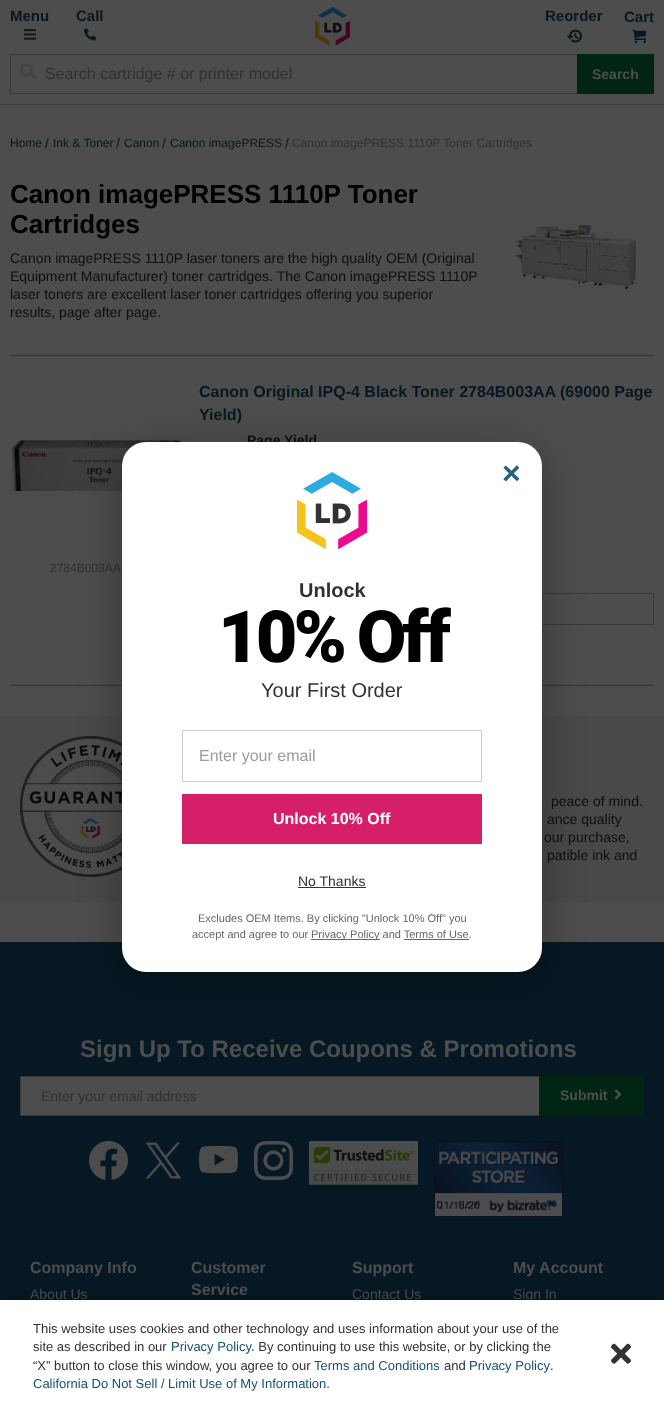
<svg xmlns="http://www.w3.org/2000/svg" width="664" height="1414">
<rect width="100%" height="100%" fill="#4d4d4d"/>
<rect y="104" width="664" height="1" fill="#3f3f3f"/>
<text x="10" y="21" style="font-family:Liberation Sans;font-size:15px;font-weight:bold;fill:#061823">Menu</text>
<image x="24" y="29" width="12" height="11" href="media/1.png"/>
<text x="76" y="21" style="font-family:Liberation Sans;font-size:15px;font-weight:bold;fill:#061823">Call</text>
<image x="84" y="28" width="12" height="13" href="media/2.png"/>
<image x="315" y="7" width="35" height="39" href="media/3.png"/>
<text x="545" y="21" style="font-family:Liberation Sans;font-size:15px;font-weight:bold;fill:#061823">Reorder</text>
<image x="567" y="29" width="15" height="14" href="media/4.png"/>
<text x="624" y="22" style="font-family:Liberation Sans;font-size:15px;font-weight:bold;fill:#061823">Cart</text>
<image x="632" y="29" width="14" height="15" href="media/5.png"/>
<rect x="10.5" y="54.5" width="643" height="39" rx="0.5" fill="none" stroke="#3a3a3a"/>
<image x="20" y="63" width="16" height="17" href="media/6.png"/>
<text x="45" y="79" style="font-family:Liberation Sans;font-size:16px;fill:#313131">Search cartridge # or printer model</text>
<rect x="577" y="54" width="77" height="40" fill="#002613"/>
<text x="592" y="79" style="font-family:Liberation Sans;font-size:14px;font-weight:bold;fill:#4d4d4d">Search</text>
<text x="10" y="147" style="font-family:Liberation Sans;font-size:12px;fill:#061823">Home</text>
<text x="45" y="148" style="font-family:Liberation Sans;font-size:14px;fill:#061823">/</text>
<text x="53" y="147" style="font-family:Liberation Sans;font-size:12px;fill:#061823">Ink &amp; Toner</text>
<text x="116" y="148" style="font-family:Liberation Sans;font-size:14px;fill:#061823">/</text>
<text x="124" y="147" style="font-family:Liberation Sans;font-size:12px;fill:#061823">Canon</text>
<text x="162" y="148" style="font-family:Liberation Sans;font-size:14px;fill:#061823">/</text>
<text x="170" y="147" style="font-family:Liberation Sans;font-size:12px;fill:#061823">Canon imagePRESS</text>
<text x="285" y="148" style="font-family:Liberation Sans;font-size:14px;fill:#061823">/</text>
<text x="292" y="147" style="font-family:Liberation Sans;font-size:12px;fill:#313131">Canon imagePRESS 1110P Toner Cartridges</text>
<text x="10" y="203" style="font-family:Liberation Sans;font-size:26px;font-weight:bold;fill:#000">Canon imagePRESS 1110P Toner</text>
<text x="10" y="233" style="font-family:Liberation Sans;font-size:26px;font-weight:bold;fill:#000">Cartridges</text>
<text x="10" y="263" style="font-family:Liberation Sans;font-size:14px;fill:#0f0f0f">Canon imagePRESS 1110P laser toners are the high quality OEM (Original</text>
<text x="10" y="281" style="font-family:Liberation Sans;font-size:14px;fill:#0f0f0f">Equipment Manufacturer) toner cartridges. The Canon imagePRESS 1110P</text>
<text x="10" y="299" style="font-family:Liberation Sans;font-size:14px;fill:#0f0f0f">laser toners are excellent laser toner cartridges offering you superior</text>
<text x="10" y="317" style="font-family:Liberation Sans;font-size:14px;fill:#0f0f0f">results, page after page.</text>
<image x="515" y="224" width="121" height="66" href="media/7.png"/>
<rect x="10" y="355" width="644" height="1" fill="#323232"/>
<rect x="10" y="685" width="644" height="1" fill="#323232"/>
<text x="199" y="397" style="font-family:Liberation Sans;font-size:16px;font-weight:bold;fill:#061823">Canon Original IPQ-4 Black Toner 2784B003AA (69000 Page</text>
<text x="199" y="420" style="font-family:Liberation Sans;font-size:16px;font-weight:bold;fill:#061823">Yield)</text>
<text x="247" y="445" style="font-family:Liberation Sans;font-size:14px;font-weight:bold;fill:#0f0f0f">Page Yield</text>
<rect x="199.5" y="593.5" width="454" height="31" rx="0.5" fill="none" stroke="#3a3a3a"/>
<image x="10" y="436" width="179" height="61" href="media/8.png"/>
<text x="50" y="572" style="font-family:Liberation Sans;font-size:12px;fill:#313131">2784B003AA</text>
<rect y="716" width="664" height="186" fill="#494949"/>
<image x="20" y="736" width="102" height="141" href="media/9.png"/>
<text x="551" y="806" style="font-family:Liberation Sans;font-size:14px;fill:#0f0f0f">peace of mind.</text>
<text x="547" y="824" style="font-family:Liberation Sans;font-size:14px;fill:#0f0f0f">ance quality</text>
<text x="544" y="842" style="font-family:Liberation Sans;font-size:14px;fill:#0f0f0f">our purchase,</text>
<text x="547" y="860" style="font-family:Liberation Sans;font-size:14px;fill:#0f0f0f">patible ink and</text>
<rect y="942" width="664" height="358" fill="#061823"/>
<text x="80" y="1057" style="font-family:Liberation Sans;font-size:24px;font-weight:bold;fill:#4d4d4d">Sign Up To Receive Coupons &amp; Promotions</text>
<rect x="21" y="1077" width="518" height="38" fill="#4d4d4d"/>
<rect x="20.5" y="1076.5" width="617" height="39" rx="0.5" fill="none" stroke="#3a3a3a"/>
<text x="41" y="1101" style="font-family:Liberation Sans;font-size:14px;fill:#313131">Enter your email address</text>
<rect x="539" y="1076" width="105" height="40" fill="#002613"/>
<text x="560" y="1100" style="font-family:Liberation Sans;font-size:14px;font-weight:bold;fill:#4d4d4d">Submit</text>
<image x="614" y="1089" width="8" height="11" href="media/10.png"/>
<image x="89" y="1141" width="39" height="39" href="media/11.png"/>
<image x="145" y="1142" width="37" height="37" href="media/12.png"/>
<image x="199" y="1145" width="39" height="29" href="media/13.png"/>
<image x="254" y="1141" width="39" height="39" href="media/14.png"/>
<image x="309" y="1141" width="109" height="44" href="media/15.png"/>
<image x="434" y="1141" width="129" height="76" href="media/16.png"/>
<text x="30" y="1273" style="font-family:Liberation Sans;font-size:16px;font-weight:bold;fill:#4d4d4d">Company Info</text>
<text x="30" y="1299" style="font-family:Liberation Sans;font-size:14px;fill:#4d4d4d">About Us</text>
<text x="191" y="1273" style="font-family:Liberation Sans;font-size:16px;font-weight:bold;fill:#4d4d4d">Customer</text>
<text x="191" y="1295" style="font-family:Liberation Sans;font-size:16px;font-weight:bold;fill:#4d4d4d">Service</text>
<text x="352" y="1273" style="font-family:Liberation Sans;font-size:16px;font-weight:bold;fill:#4d4d4d">Support</text>
<text x="352" y="1299" style="font-family:Liberation Sans;font-size:14px;fill:#4d4d4d">Contact Us</text>
<text x="513" y="1273" style="font-family:Liberation Sans;font-size:16px;font-weight:bold;fill:#4d4d4d">My Account</text>
<text x="513" y="1299" style="font-family:Liberation Sans;font-size:14px;fill:#4d4d4d">Sign In</text>
<rect x="7" y="1304" width="650" height="100" fill="#000000a3" filter="blur(6.5px)"/>
<rect y="1300" width="664" height="114" fill="#fff"/>
<text x="33" y="1333" style="font-family:Liberation Sans;font-size:13px;fill:#313131">This website uses cookies and other technology and uses information about your use of the</text>
<text x="33" y="1351" style="font-family:Liberation Sans;font-size:13px;fill:#313131">site as described in our</text>
<text x="171" y="1351" style="font-family:Liberation Sans;font-size:13px;fill:#145173">Privacy Policy</text>
<text x="251" y="1351" style="font-family:Liberation Sans;font-size:13px;fill:#313131">. By continuing to use this website, or by clicking the</text>
<text x="33" y="1370" style="font-family:Liberation Sans;font-size:13px;fill:#313131">“X” button to close this window, you agree to our</text>
<text x="314" y="1370" style="font-family:Liberation Sans;font-size:13px;fill:#145173">Terms and Conditions</text>
<text x="444" y="1370" style="font-family:Liberation Sans;font-size:13px;fill:#313131">and</text>
<text x="469" y="1370" style="font-family:Liberation Sans;font-size:13px;fill:#145173">Privacy Policy</text>
<text x="550" y="1370" style="font-family:Liberation Sans;font-size:13px;fill:#313131">.</text>
<text x="33" y="1388" style="font-family:Liberation Sans;font-size:13px;fill:#145173">California Do Not Sell / Limit Use of My Information.</text>
<image x="611" y="1343" width="20" height="21" href="media/17.png"/>
<rect x="122" y="452" width="420" height="530" rx="24" fill="#0000004d" filter="blur(20px)"/>
<rect x="122" y="442" width="420" height="530" rx="24" fill="#fff"/>
<text x="502" y="484" style="font-family:Liberation Sans;font-size:32px;font-weight:bold;fill:#2c5f7c">×</text>
<image x="297" y="472" width="70" height="77" href="media/18.png"/>
<text x="299" y="597" style="font-family:Liberation Sans;font-size:20px;font-weight:bold;fill:#313131">Unlock</text>
<text x="218" y="662" style="font-family:Roboto;font-size:72px;font-weight:900;letter-spacing:-4px;fill:#000">10% Off</text>
<text x="261" y="697" style="font-family:Liberation Sans;font-size:20px;fill:#313131">Your First Order</text>
<rect x="182.5" y="730.5" width="299" height="51" fill="none" stroke="#ccc"/>
<text x="199" y="761" style="font-family:Liberation Sans;font-size:16px;fill:#9c9c9c">Enter your email</text>
<rect x="182" y="794" width="300" height="50" fill="#d61f69"/>
<text x="273" y="824" style="font-family:Liberation Sans;font-size:16px;font-weight:bold;fill:#fff">Unlock 10% Off</text>
<text x="298" y="886" style="font-family:Liberation Sans;font-size:14px;fill:#313131">No Thanks</text>
<rect x="298" y="887" width="68" height="1" fill="#333"/>
<text x="198" y="922" style="font-family:Liberation Sans;font-size:11px;fill:#666">Excludes OEM Items. By clicking "Unlock 10% Off" you</text>
<text x="192" y="938" style="font-family:Liberation Sans;font-size:11px;fill:#666">accept and agree to our</text>
<rect x="311" y="939" width="69" height="1" fill="#666"/>
<text x="311" y="938" style="font-family:Liberation Sans;font-size:11px;fill:#666">Privacy Policy and Terms of Use.</text>
<rect x="404" y="939" width="65" height="1" fill="#666"/>
</svg>
